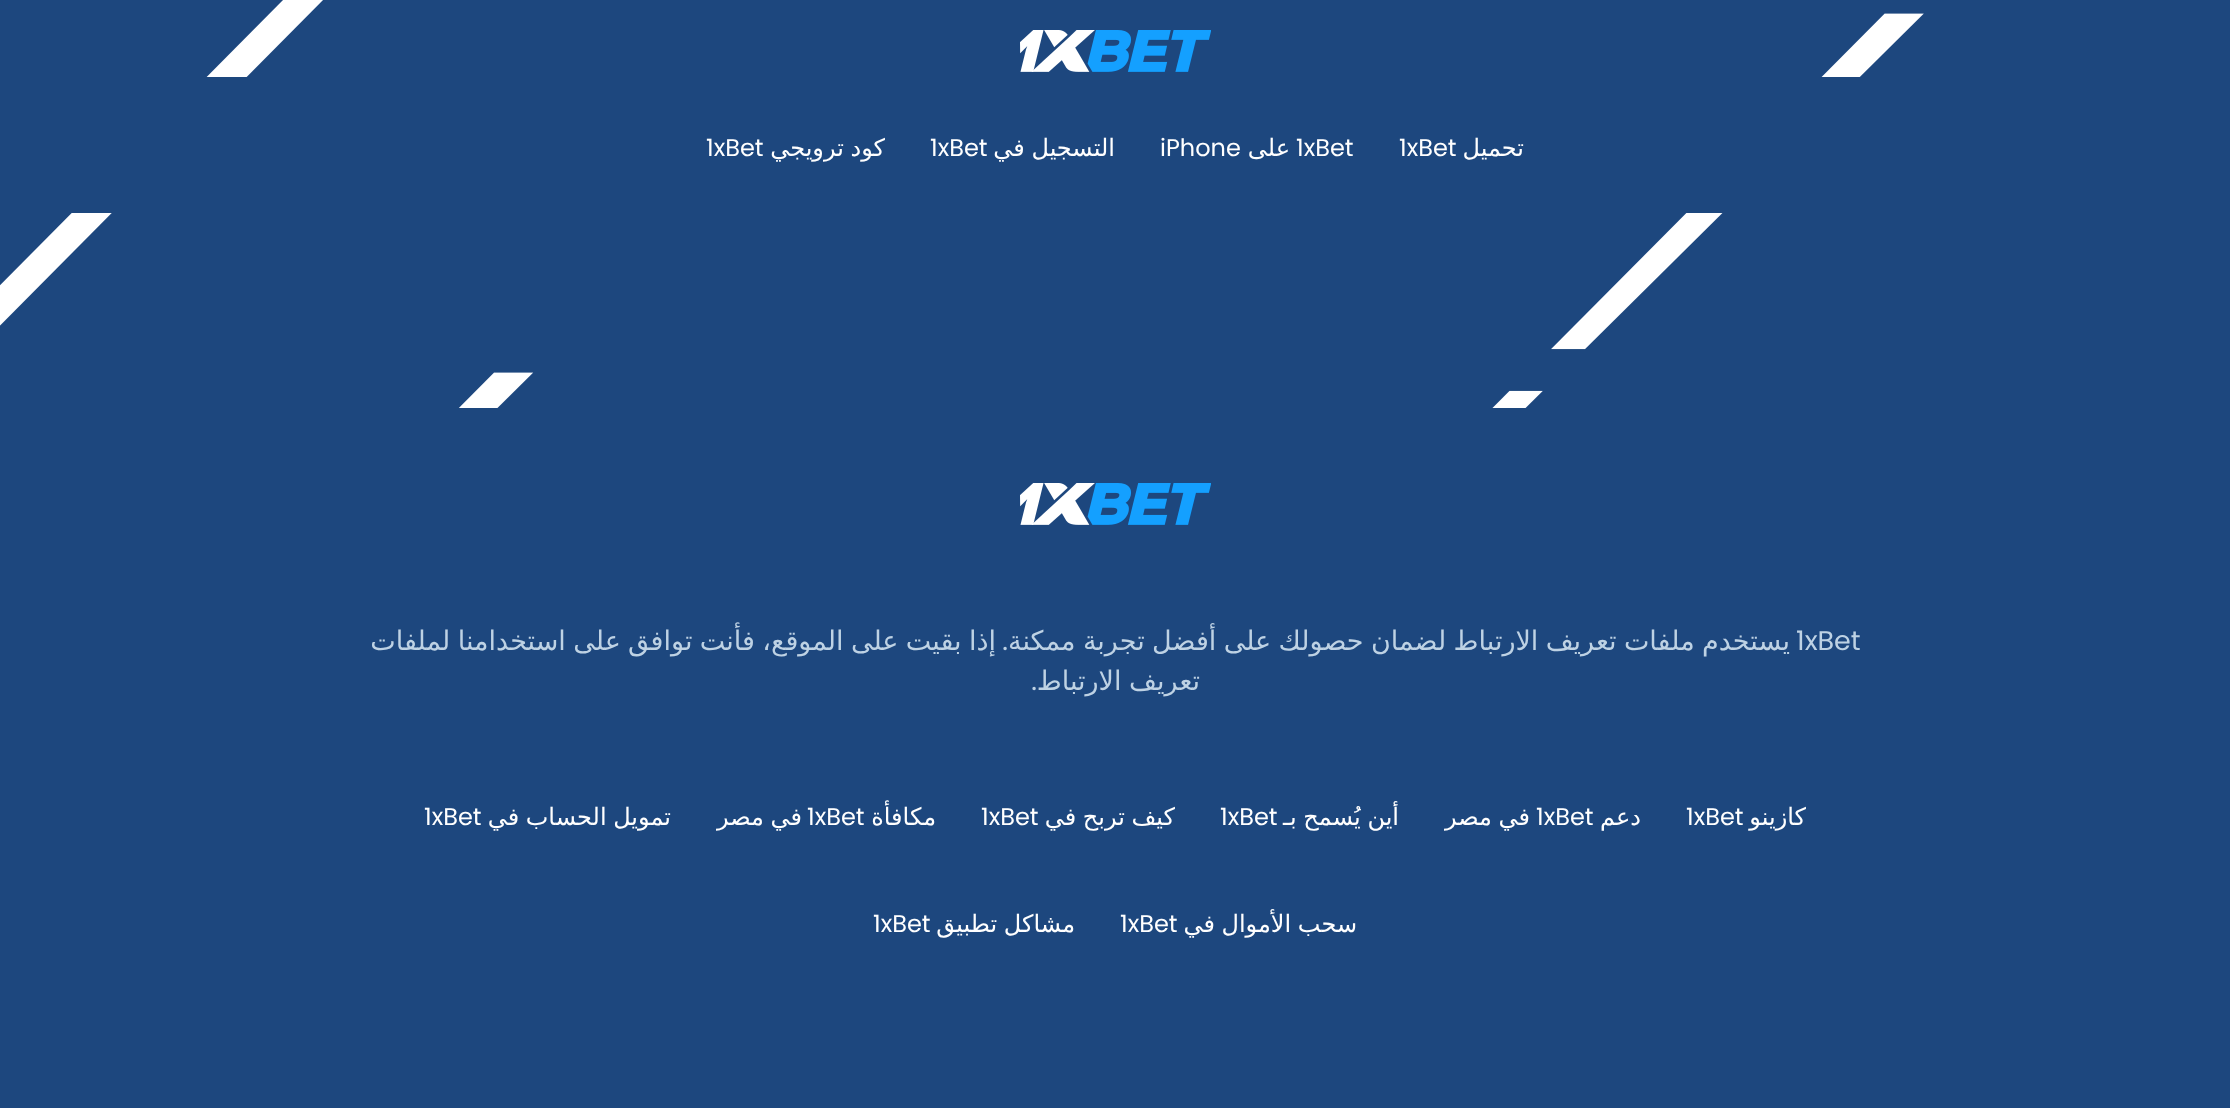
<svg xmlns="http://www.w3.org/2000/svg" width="2230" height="1108">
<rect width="100%" height="100%" fill="#1d477e"/>
<image x="0" y="0" width="1924" height="408" href="media/1.png"/>
<image x="1020" y="30" width="191" height="42" href="media/2.png"/>
<rect x="71" y="77" width="1789" height="136" fill="#1d477e"/>
<text x="1524" y="156" style="font-family:DejaVu Sans;font-size:24px;direction:rtl;fill:#fff">تحميل</text>
<text x="1399" y="156" style="font-family:Poppins;font-size:24px;fill:#fff">1xBet</text>
<text x="1296" y="156" style="font-family:Poppins;font-size:24px;fill:#fff">1xBet</text>
<text x="1290" y="156" style="font-family:DejaVu Sans;font-size:24px;direction:rtl;fill:#fff">على</text>
<text x="1160" y="156" style="font-family:Poppins;font-size:24px;fill:#fff">iPhone</text>
<text x="1115" y="156" word-spacing="-1" style="font-family:DejaVu Sans;font-size:24px;direction:rtl;fill:#fff">التسجيل في</text>
<text x="930" y="156" style="font-family:Poppins;font-size:24px;fill:#fff">1xBet</text>
<text x="885" y="156" word-spacing="-1" style="font-family:DejaVu Sans;font-size:24px;direction:rtl;fill:#fff">كود ترويجي</text>
<text x="706" y="156" style="font-family:Poppins;font-size:24px;fill:#fff">1xBet</text>
<image x="1020" y="483" width="191" height="42" href="media/2.png"/>
<text x="1796" y="650" style="font-family:Poppins;font-size:27px;fill:#bed2e4">1xBet</text>
<text x="1790" y="650" word-spacing="-1.25" style="font-family:DejaVu Sans;font-size:27px;direction:rtl;fill:#bed2e4">يستخدم ملفات تعريف الارتباط لضمان حصولك على أفضل تجربة ممكنة</text>
<text x="1008" y="650" style="font-family:Poppins;font-size:27px;direction:rtl;fill:#bed2e4">.</text>
<text x="996" y="650" word-spacing="-1.25" style="font-family:DejaVu Sans;font-size:27px;direction:rtl;fill:#bed2e4">إذا بقيت على الموقع، فأنت توافق على استخدامنا لملفات</text>
<text x="1200" y="690" word-spacing="-1" style="font-family:DejaVu Sans;font-size:27px;direction:rtl;fill:#bed2e4">تعريف الارتباط</text>
<text x="1037" y="690" style="font-family:Poppins;font-size:27px;direction:rtl;fill:#bed2e4">.</text>
<text x="1806" y="825" style="font-family:DejaVu Sans;font-size:24px;direction:rtl;fill:#fff">كازينو</text>
<text x="1686" y="825" style="font-family:Poppins;font-size:24px;fill:#fff">1xBet</text>
<text x="1641" y="825" style="font-family:DejaVu Sans;font-size:24px;direction:rtl;fill:#fff">دعم</text>
<text x="1536" y="825" style="font-family:Poppins;font-size:24px;fill:#fff">1xBet</text>
<text x="1530" y="825" word-spacing="-1" style="font-family:DejaVu Sans;font-size:24px;direction:rtl;fill:#fff">في مصر</text>
<text x="1399" y="825" word-spacing="-1" style="font-family:DejaVu Sans;font-size:24px;direction:rtl;fill:#fff">أين يُسمح بـ</text>
<text x="1220" y="825" style="font-family:Poppins;font-size:24px;fill:#fff">1xBet</text>
<text x="1175" y="825" word-spacing="-1" style="font-family:DejaVu Sans;font-size:24px;direction:rtl;fill:#fff">كيف تربح في</text>
<text x="981" y="825" style="font-family:Poppins;font-size:24px;fill:#fff">1xBet</text>
<text x="936" y="825" style="font-family:DejaVu Sans;font-size:24px;direction:rtl;fill:#fff">مكافأة</text>
<text x="807" y="825" style="font-family:Poppins;font-size:24px;fill:#fff">1xBet</text>
<text x="802" y="825" word-spacing="-1" style="font-family:DejaVu Sans;font-size:24px;direction:rtl;fill:#fff">في مصر</text>
<text x="671" y="825" word-spacing="-1" style="font-family:DejaVu Sans;font-size:24px;direction:rtl;fill:#fff">تمويل الحساب في</text>
<text x="424" y="825" style="font-family:Poppins;font-size:24px;fill:#fff">1xBet</text>
<text x="1357" y="932" word-spacing="-1" style="font-family:DejaVu Sans;font-size:24px;direction:rtl;fill:#fff">سحب الأموال في</text>
<text x="1120" y="932" style="font-family:Poppins;font-size:24px;fill:#fff">1xBet</text>
<text x="1075" y="932" word-spacing="-1" style="font-family:DejaVu Sans;font-size:24px;direction:rtl;fill:#fff">مشاكل تطبيق</text>
<text x="873" y="932" style="font-family:Poppins;font-size:24px;fill:#fff">1xBet</text>
</svg>
